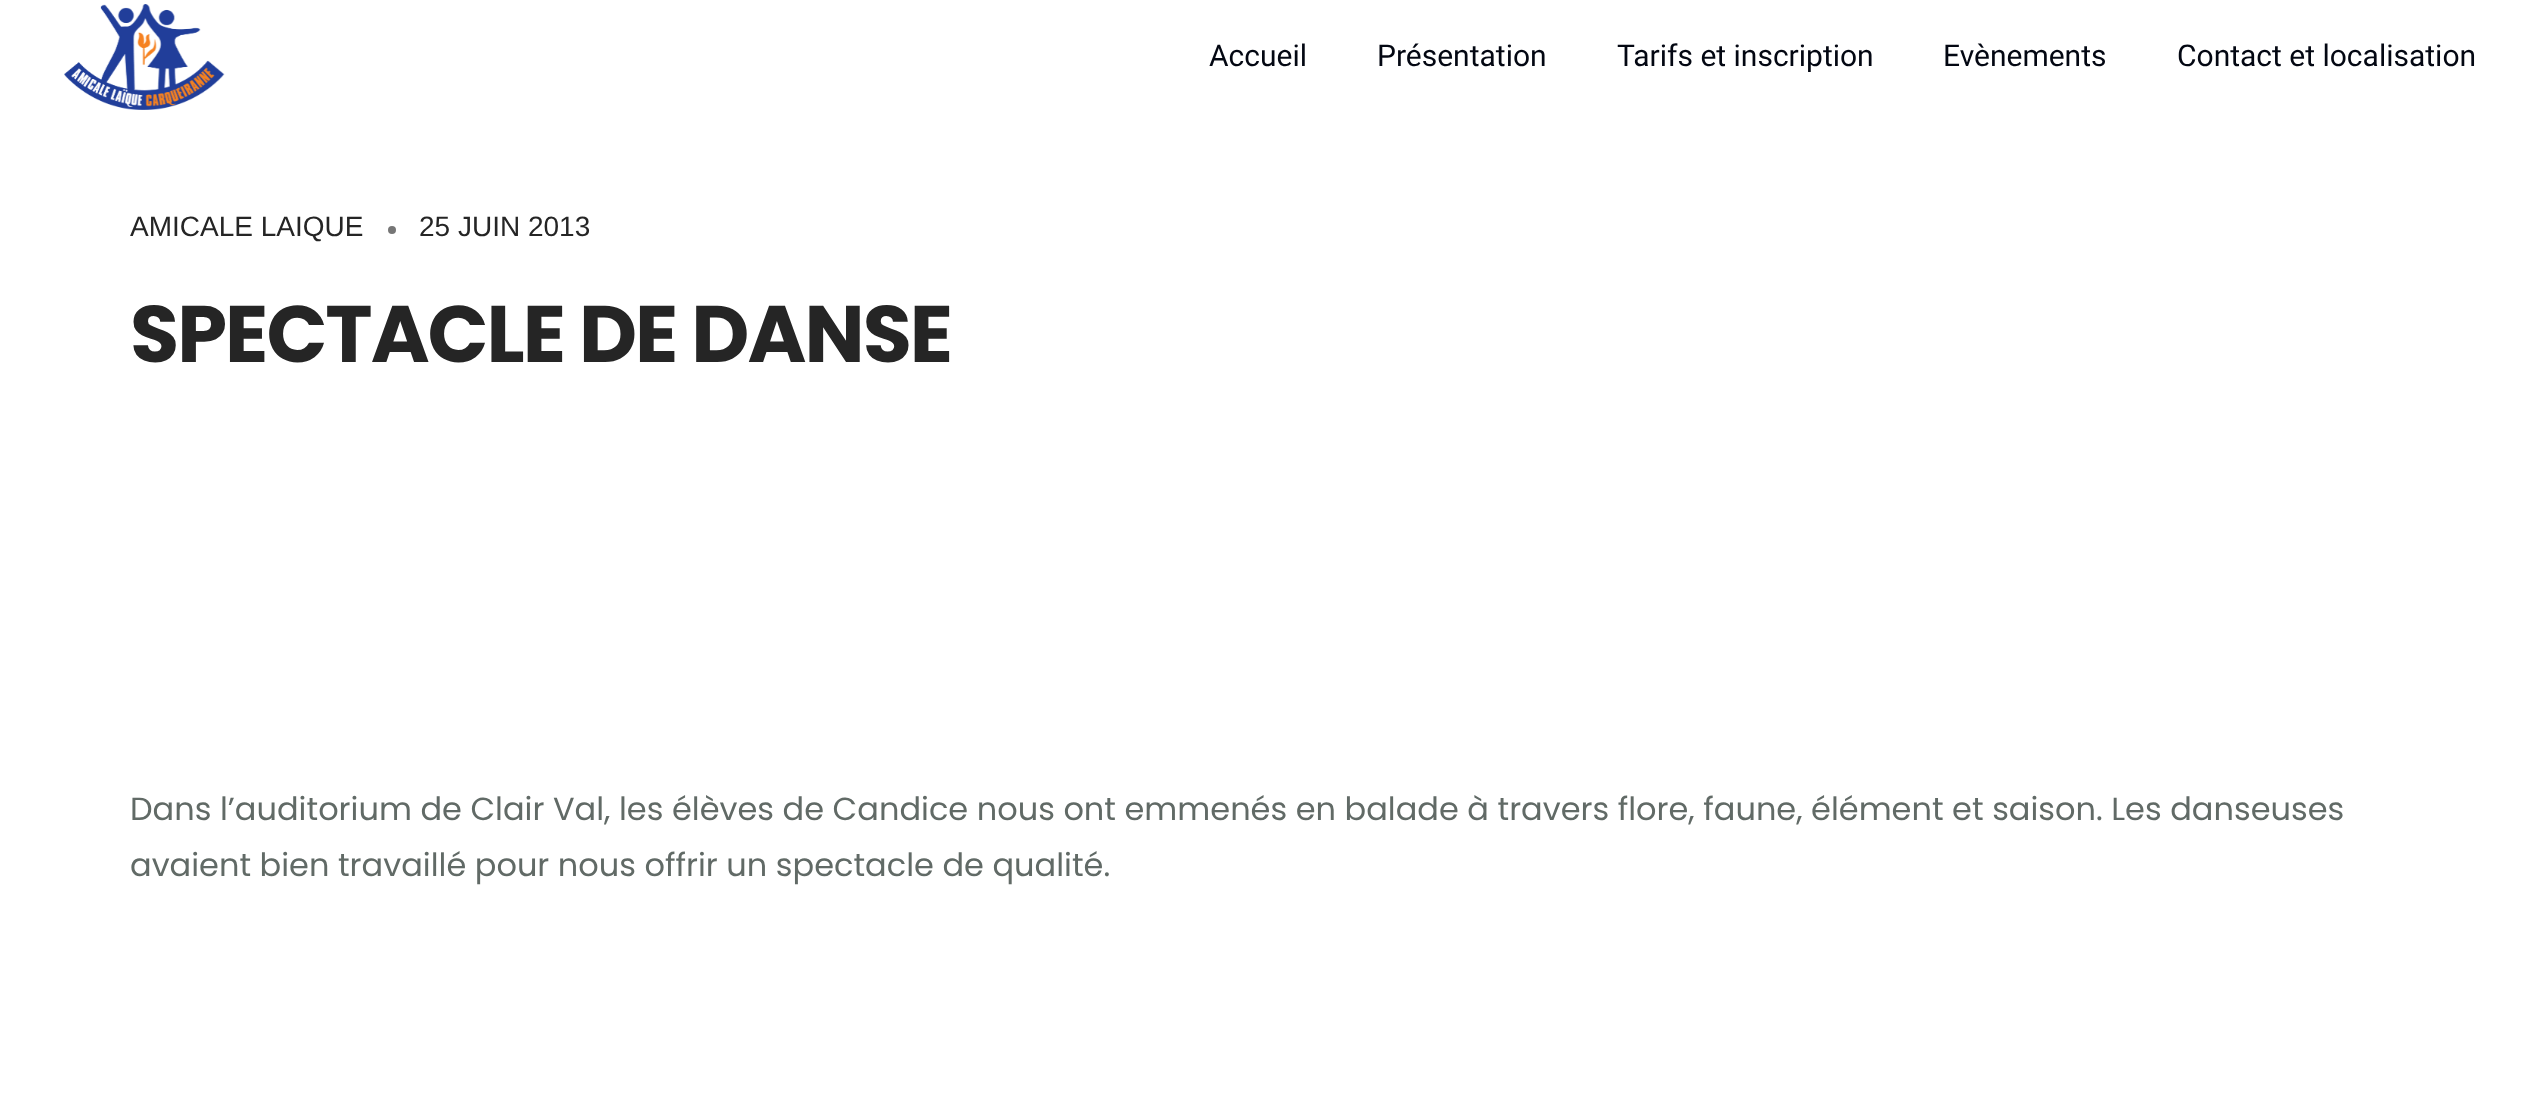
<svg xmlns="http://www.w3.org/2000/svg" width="2539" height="1094">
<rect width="100%" height="100%" fill="#fff"/>
<image x="64" y="4" width="161" height="106" href="media/1.png"/>
<text x="1209" y="66" style="font-family:Roboto;font-size:30px;fill:#030712">Accueil</text>
<text x="1377" y="66" style="font-family:Roboto;font-size:30px;fill:#030712">Présentation</text>
<text x="1617" y="66" style="font-family:Roboto;font-size:30px;fill:#030712">Tarifs et inscription</text>
<text x="1943" y="66" style="font-family:Roboto;font-size:30px;fill:#030712">Evènements</text>
<text x="2177" y="66" style="font-family:Roboto;font-size:30px;fill:#030712">Contact et localisation</text>
<text x="130" y="236" style="font-family:Liberation Sans;font-size:28px;fill:#252525">AMICALE LAIQUE</text>
<circle cx="392" cy="230" r="4" fill="#767676"/>
<text x="419" y="236" style="font-family:Liberation Sans;font-size:28px;fill:#252525">25 JUIN 2013</text>
<text x="130" y="362" style="font-family:Poppins;font-size:80px;font-weight:bold;letter-spacing:-2px;fill:#252525">SPECTACLE DE DANSE</text>
<text x="130" y="820" style="font-family:Poppins;font-size:32px;fill:#616a66">Dans l’auditorium de Clair Val, les élèves de Candice nous ont emmenés en balade à travers flore, faune, élément et saison. Les danseuses</text>
<text x="130" y="876" style="font-family:Poppins;font-size:32px;fill:#616a66">avaient bien travaillé pour nous offrir un spectacle de qualité.</text>
</svg>
